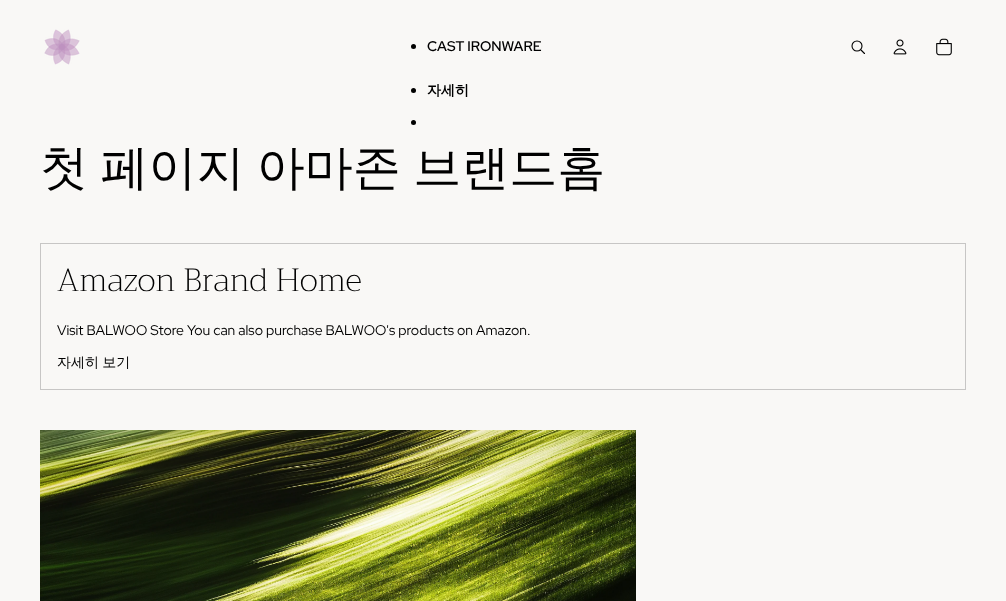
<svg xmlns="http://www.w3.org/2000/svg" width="1006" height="601">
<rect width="100%" height="100%" fill="#f9f8f6"/>
<image x="44" y="29" width="36" height="36" href="media/1.png"/>
<circle cx="413.5" cy="46.5" r="2.5" fill="#000"/>
<text x="427" y="51" style="font-family:Red Hat Display;font-size:14px;font-weight:600;fill:#000">CAST IRONWARE</text>
<circle cx="413.5" cy="90.5" r="2.5" fill="#000"/>
<text x="427" y="95" style="font-family:WenQuanYi Zen Hei;font-size:14px;font-weight:bold;fill:#000">자세히</text>
<circle cx="413.5" cy="122.5" r="2.5" fill="#000"/>
<circle cx="857" cy="46" r="5" fill="none" stroke="#000" stroke-width="1.1"/>
<path d="M861 50l3.5 3.5" fill="none" stroke="#000" stroke-width="1.1" stroke-linecap="round" stroke-linejoin="round"/>
<image x="893" y="39" width="14" height="16" href="media/2.png"/>
<image x="936" y="38" width="16" height="18" href="media/3.png"/>
<text x="40" y="184" word-spacing="-2" style="font-family:WenQuanYi Zen Hei;font-size:48px;font-weight:500;fill:#000">첫 페이지 아마존 브랜드홈</text>
<rect x="40.5" y="243.5" width="925" height="146" fill="none" stroke="#c7c6c5"/>
<text x="57" y="291" style="font-family:Trirong;font-size:32px;font-weight:300;fill:#000">Amazon Brand Home</text>
<text x="57" y="335" style="font-family:Red Hat Display;font-size:14px;fill:#000">Visit BALWOO Store You can also purchase BALWOO's products on Amazon.</text>
<text x="57" y="367" word-spacing="-1" style="font-family:WenQuanYi Zen Hei;font-size:14px;font-weight:500;fill:#000">자세히 보기</text>
<image x="40" y="430" width="596" height="171" href="media/4.png"/>
</svg>
